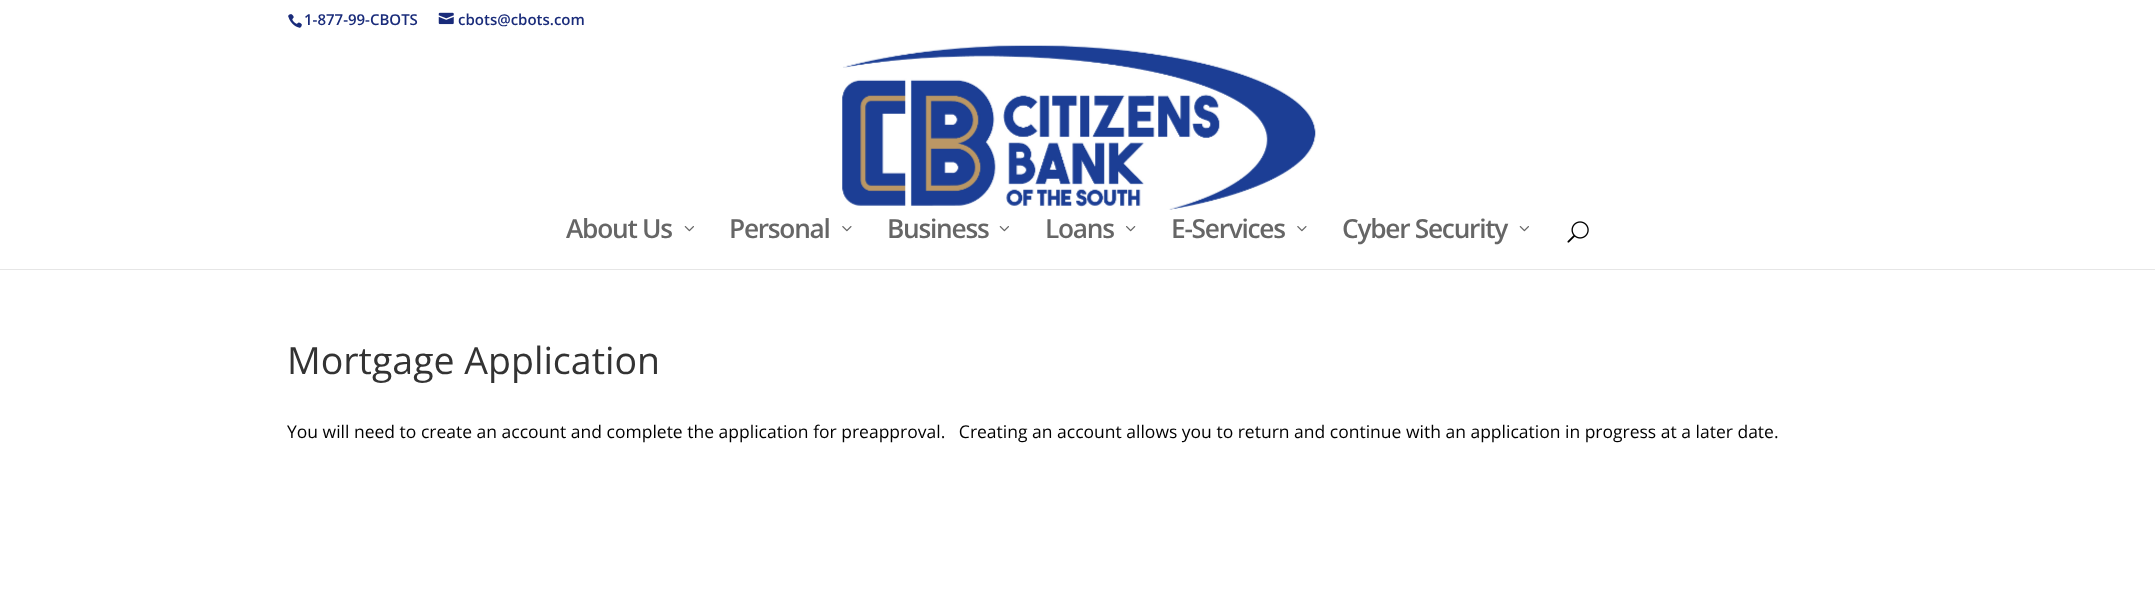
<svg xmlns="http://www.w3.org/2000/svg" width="2155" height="599">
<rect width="100%" height="100%" fill="#fff"/>
<image x="288" y="14" width="14" height="14" href="media/1.png"/>
<text x="304" y="25" style="font-family:Open Sans;font-size:15px;font-weight:600;fill:#192b7a">1-877-99-CBOTS</text>
<image x="438" y="12" width="16" height="13" href="media/2.png"/>
<text x="458" y="25" style="font-family:Open Sans;font-size:15px;font-weight:600;fill:#192b7a">cbots@cbots.com</text>
<rect y="269" width="2155" height="1" fill="#e6e6e6"/>
<image x="842" y="45" width="474" height="165" href="media/3.png"/>
<text x="566" y="238" style="font-family:Open Sans;font-size:26.25px;font-weight:600;letter-spacing:-1.25px;fill:#666">About Us</text>
<image x="684" y="226" width="10" height="6" href="media/4.png"/>
<text x="729" y="238" style="font-family:Open Sans;font-size:26.25px;font-weight:600;letter-spacing:-1.25px;fill:#666">Personal</text>
<image x="842" y="226" width="10" height="6" href="media/5.png"/>
<text x="887" y="238" style="font-family:Open Sans;font-size:26.25px;font-weight:600;letter-spacing:-1.25px;fill:#666">Business</text>
<image x="999" y="226" width="10" height="6" href="media/4.png"/>
<text x="1045" y="238" style="font-family:Open Sans;font-size:26.25px;font-weight:600;letter-spacing:-1.25px;fill:#666">Loans</text>
<image x="1126" y="226" width="10" height="6" href="media/6.png"/>
<text x="1171" y="238" style="font-family:Open Sans;font-size:26.25px;font-weight:600;letter-spacing:-1.25px;fill:#666">E-Services</text>
<image x="1297" y="226" width="10" height="6" href="media/5.png"/>
<text x="1342" y="238" style="font-family:Open Sans;font-size:26.25px;font-weight:600;letter-spacing:-1.25px;fill:#666">Cyber Security</text>
<image x="1519" y="226" width="10" height="6" href="media/4.png"/>
<image x="1567" y="221" width="22" height="22" href="media/7.png"/>
<text x="287" y="374" style="font-family:Open Sans;font-size:37.5px;fill:#333">Mortgage Application</text>
<text x="287" y="438" style="font-family:Open Sans;font-size:17.5px;fill:#000" xml:space="preserve">You will need to create an account and complete the application for preapproval.   Creating an account allows you to return and continue with an application in progress at a later date.</text>
</svg>
